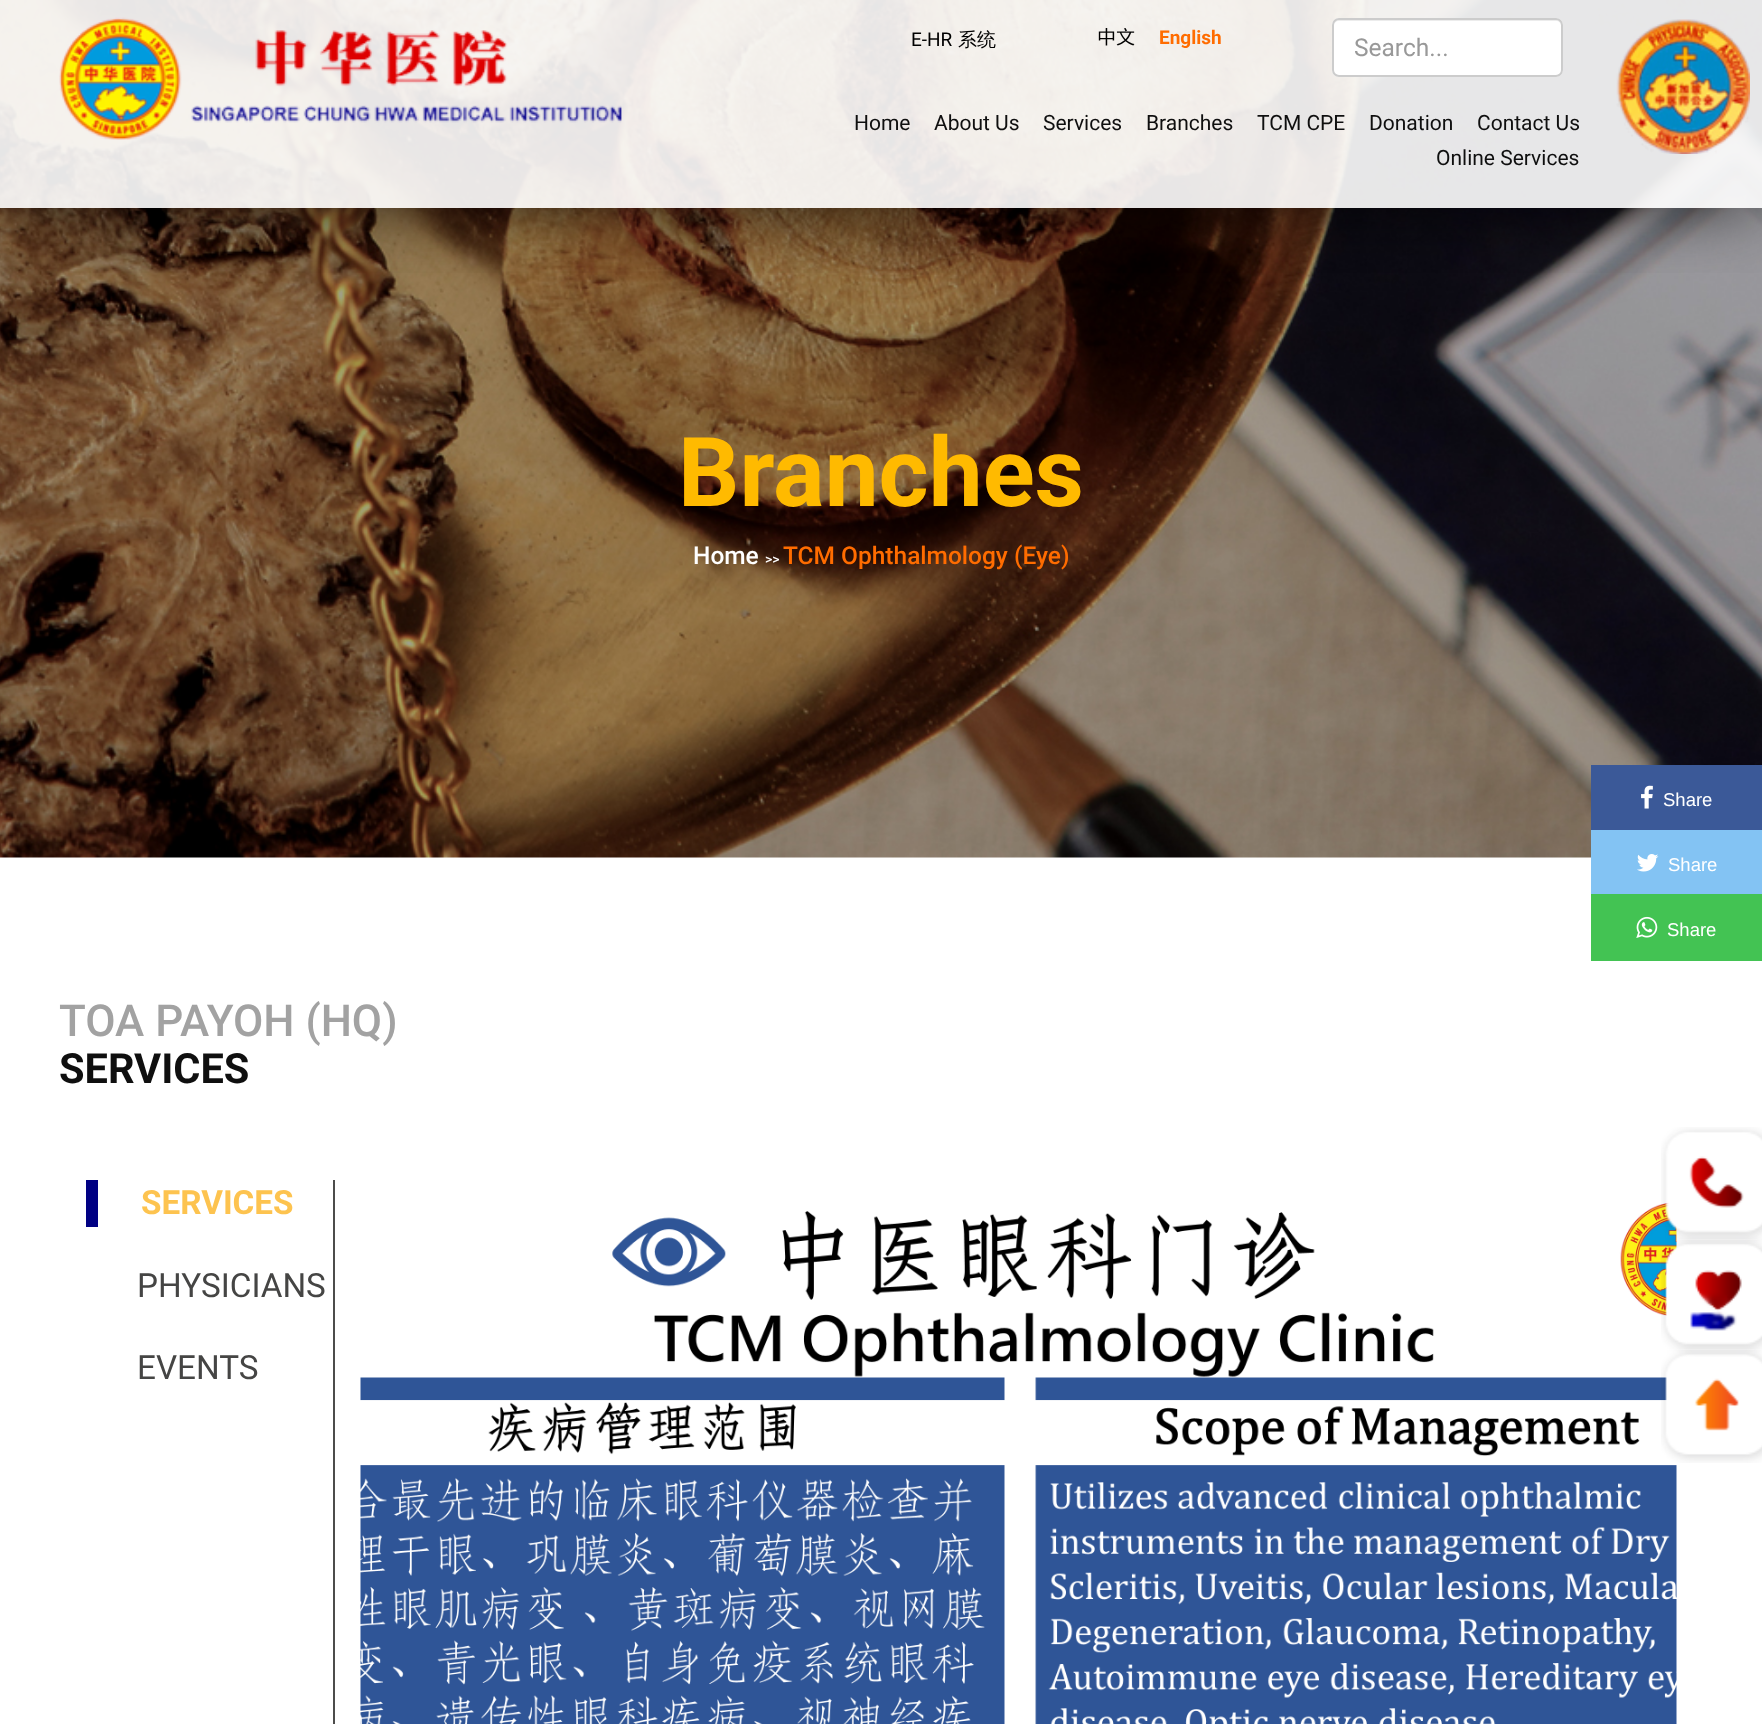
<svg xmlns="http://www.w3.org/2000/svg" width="1762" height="1724">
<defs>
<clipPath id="clip1"><rect x="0" y="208" width="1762" height="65"/></clipPath>
</defs>
<rect width="100%" height="100%" fill="#fff"/>
<image x="0" y="0" width="1762" height="858" href="media/3.png"/>
<g clip-path="url(#clip1)">
<rect x="4" y="11" width="1748" height="194" fill="#000000bf" filter="blur(35px)"/>
</g>
<rect width="1762" height="208" fill="#ffffffe6"/>
<image x="59" y="17" width="563" height="123" href="media/1.png"/>
<text x="911" y="46" style="font-family:Roboto;font-size:19px;fill:#000">E-HR</text>
<text x="958" y="46" style="font-family:WenQuanYi Zen Hei;font-size:19px;font-weight:500;fill:#000">系统</text>
<text x="1097" y="44" style="font-family:Noto Sans CJK SC;font-size:19px;fill:#000">中文</text>
<text x="1159" y="44" style="font-family:Roboto;font-size:19px;font-weight:bold;fill:#ff6c00">English</text>
<rect x="1332" y="18" width="231" height="59" rx="7" fill="#fff"/>
<path d="M1339 21h217c3 0 5 2 5 5c0-3 0-6-4-7h-218c-4 0-5 4-5 7c0-3 2-5 5-5z" fill="#ececec"/>
<rect x="1333" y="19" width="229" height="57" rx="6" fill="none" stroke="#ccc" stroke-width="2"/>
<text x="1354" y="56" style="font-family:Roboto;font-size:24.5px;fill:#999">Search...</text>
<text x="854" y="130" style="font-family:Roboto;font-size:21px;fill:#0f0f0f">Home</text>
<text x="934" y="130" style="font-family:Roboto;font-size:21px;fill:#0f0f0f">About Us</text>
<text x="1043" y="130" style="font-family:Roboto;font-size:21px;fill:#0f0f0f">Services</text>
<text x="1146" y="130" style="font-family:Roboto;font-size:21px;fill:#0f0f0f">Branches</text>
<text x="1257" y="130" style="font-family:Roboto;font-size:21px;fill:#0f0f0f">TCM CPE</text>
<text x="1369" y="130" style="font-family:Roboto;font-size:21px;fill:#0f0f0f">Donation</text>
<text x="1477" y="130" style="font-family:Roboto;font-size:21px;fill:#0f0f0f">Contact Us</text>
<text x="1436" y="165" style="font-family:Roboto;font-size:21px;fill:#0f0f0f">Online Services</text>
<image x="1616" y="19" width="134" height="135" href="media/2.png"/>
<text x="678" y="506" style="font-family:Roboto;font-size:96.25px;font-weight:bold;fill:#ffba00">Branches</text>
<text x="693" y="564" style="font-family:Roboto;font-size:24.5px;font-weight:500;fill:#fff">Home</text>
<text x="765" y="564" style="font-family:Roboto;font-size:14px;font-weight:500;fill:#fff">&gt;&gt;</text>
<text x="783" y="564" style="font-family:Roboto;font-size:24.5px;font-weight:500;fill:#ff6c00">TCM Ophthalmology (Eye)</text>
<rect x="1591" y="765" width="171" height="65" fill="#3b5998"/>
<image x="1641" y="785" width="12" height="24" href="media/4.png"/>
<text x="1663" y="806" style="font-family:Liberation Sans;font-size:18.5px;fill:#fff">Share</text>
<rect x="1591" y="830" width="171" height="64" fill="#83c3f3"/>
<image x="1637" y="854" width="22" height="18" href="media/5.png"/>
<text x="1668" y="871" style="font-family:Liberation Sans;font-size:18.5px;fill:#fff">Share</text>
<rect x="1591" y="894" width="171" height="67" fill="#43c353"/>
<image x="1636" y="916" width="22" height="22" href="media/6.png"/>
<text x="1667" y="936" style="font-family:Liberation Sans;font-size:18.5px;fill:#fff">Share</text>
<text x="59" y="1036" style="font-family:Roboto;font-size:44px;font-weight:500;fill:#a2a2a2">TOA PAYOH (HQ)</text>
<text x="59" y="1083" style="font-family:Roboto;font-size:41.5px;font-weight:bold;fill:#0f0f0f">SERVICES</text>
<rect x="86" y="1180" width="12" height="47" fill="#000083"/>
<text x="141" y="1214" style="font-family:Roboto;font-size:33.25px;font-weight:bold;fill:#fdc34f">SERVICES</text>
<text x="137" y="1297" style="font-family:Roboto;font-size:33.25px;fill:#454544">PHYSICIANS</text>
<text x="137" y="1379" style="font-family:Roboto;font-size:33.25px;fill:#454544">EVENTS</text>
<rect x="333" y="1180" width="2" height="544" fill="#4c4c4b"/>
<image x="360" y="1201" width="1317" height="523" href="media/7.png"/>
<image x="1661" y="1127" width="101" height="112" href="media/8.png"/>
<image x="1661" y="1239" width="101" height="110" href="media/9.png"/>
<image x="1661" y="1349" width="101" height="114" href="media/10.png"/>
</svg>
